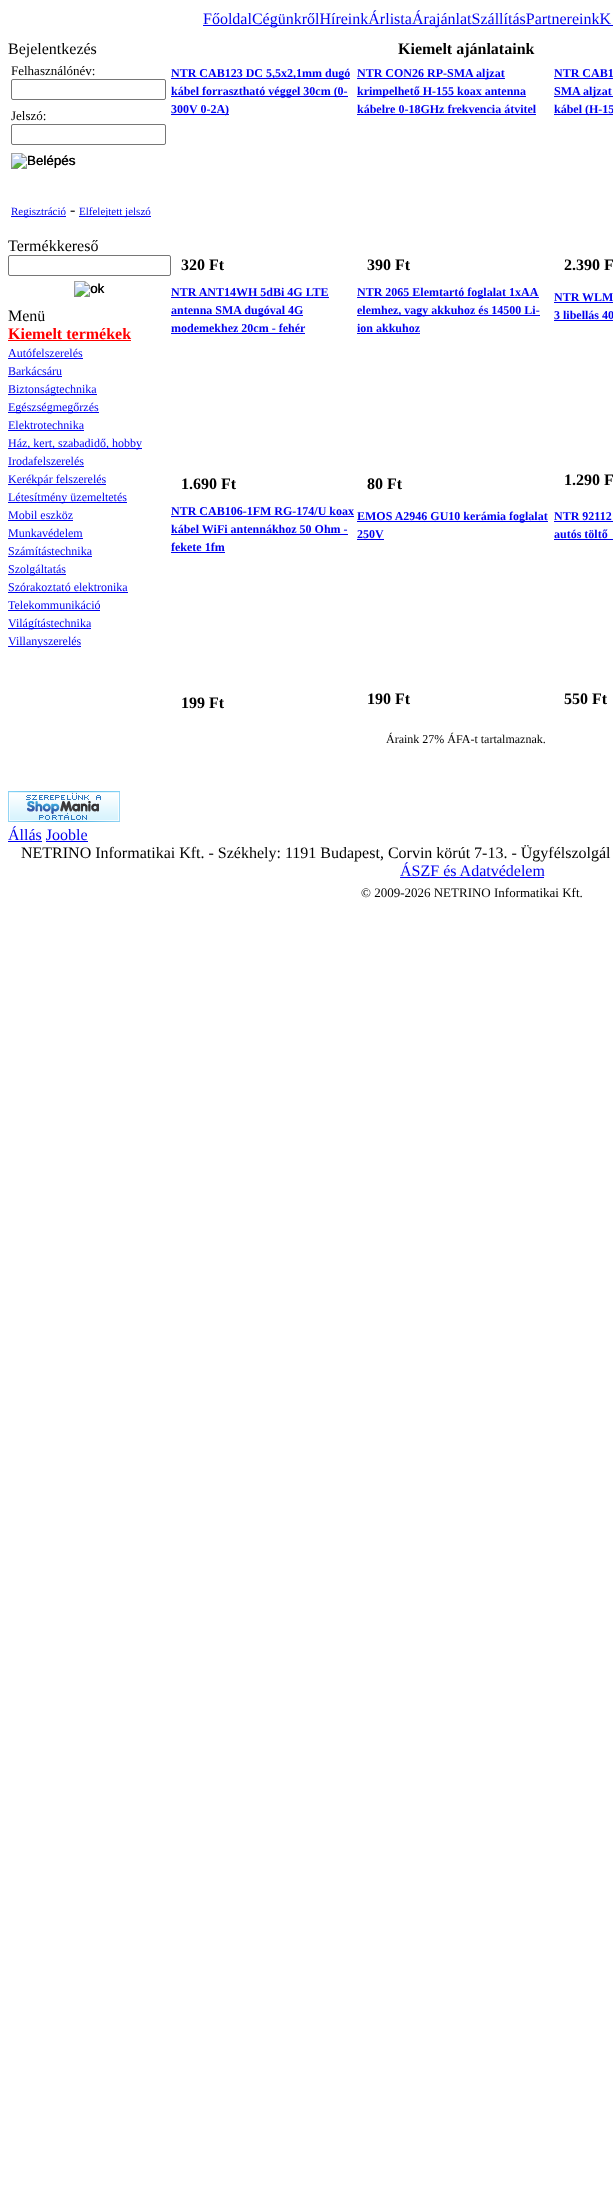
<svg xmlns="http://www.w3.org/2000/svg" width="613" height="2208">
<rect width="100%" height="100%" fill="#fff"/>
<rect x="203" y="25" width="165" height="1" fill="#00e"/>
<text x="203" y="24" style="font-family:Liberation Serif;font-size:16px;fill:#00e">FőoldalCégünkrőlHíreinkÁrlista</text>
<rect x="368" y="25" width="103" height="1" fill="#00e"/>
<text x="412" y="24" style="font-family:Liberation Serif;font-size:16px;fill:#00e">ÁrajánlatSzállításPartnereinkK</text>
<rect x="471" y="25" width="142" height="1" fill="#00e"/>
<text x="8" y="54" style="font-family:Liberation Serif;font-size:16px;fill:#000">Bejelentkezés</text>
<text x="11" y="75" style="font-family:Liberation Serif;font-size:13px;fill:#000">Felhasználónév:</text>
<rect x="11.5" y="79.5" width="154" height="20" rx="1.5" fill="none" stroke="#767676"/>
<text x="11" y="120" style="font-family:Liberation Serif;font-size:13px;fill:#000">Jelszó:</text>
<rect x="11.5" y="124.5" width="154" height="20" rx="1.5" fill="none" stroke="#767676"/>
<image x="11" y="153" width="64" height="16" href="media/1.png"/>
<text x="27" y="165" style="font-family:Liberation Sans;font-size:13.5px;fill:#000">Belépés</text>
<rect x="11" y="216" width="55" height="1" fill="#00e"/>
<text x="11" y="215" style="font-family:Liberation Serif;font-size:11px;fill:#00e">Regisztráció</text>
<text x="70" y="215" style="font-family:Liberation Serif;font-size:16px;fill:#000">-</text>
<rect x="79" y="216" width="72" height="1" fill="#00e"/>
<text x="79" y="215" style="font-family:Liberation Serif;font-size:11px;fill:#00e">Elfelejtett jelszó</text>
<text x="8" y="251" style="font-family:Liberation Serif;font-size:16px;fill:#000">Termékkereső</text>
<rect x="8.5" y="255.5" width="162" height="20" rx="1.5" fill="none" stroke="#767676"/>
<image x="74" y="281" width="31" height="16" href="media/2.png"/>
<text x="90" y="293" style="font-family:Liberation Sans;font-size:13.5px;fill:#000">ok</text>
<text x="8" y="321" style="font-family:Liberation Serif;font-size:16px;fill:#000">Menü</text>
<text x="8" y="339" style="font-family:Liberation Serif;font-size:16px;font-weight:bold;fill:#f00">Kiemelt termékek</text>
<rect x="8" y="340" width="123" height="1" fill="#f00"/>
<text x="8" y="357" style="font-family:Liberation Serif;font-size:12px;fill:#00e">Autófelszerelés</text>
<rect x="8" y="358" width="75" height="1" fill="#00e"/>
<text x="8" y="375" style="font-family:Liberation Serif;font-size:12px;fill:#00e">Barkácsáru</text>
<rect x="8" y="376" width="54" height="1" fill="#00e"/>
<rect x="8" y="394" width="89" height="1" fill="#00e"/>
<text x="8" y="393" style="font-family:Liberation Serif;font-size:12px;fill:#00e">Biztonságtechnika</text>
<rect x="8" y="412" width="91" height="1" fill="#00e"/>
<text x="8" y="411" style="font-family:Liberation Serif;font-size:12px;fill:#00e">Egészségmegőrzés</text>
<text x="8" y="429" style="font-family:Liberation Serif;font-size:12px;fill:#00e">Elektrotechnika</text>
<rect x="8" y="430" width="76" height="1" fill="#00e"/>
<rect x="8" y="448" width="134" height="1" fill="#00e"/>
<text x="8" y="447" style="font-family:Liberation Serif;font-size:12px;fill:#00e">Ház, kert, szabadidő, hobby</text>
<text x="8" y="465" style="font-family:Liberation Serif;font-size:12px;fill:#00e">Irodafelszerelés</text>
<rect x="8" y="466" width="76" height="1" fill="#00e"/>
<rect x="8" y="484" width="98" height="1" fill="#00e"/>
<text x="8" y="483" style="font-family:Liberation Serif;font-size:12px;fill:#00e">Kerékpár felszerelés</text>
<rect x="8" y="502" width="119" height="1" fill="#00e"/>
<text x="8" y="501" style="font-family:Liberation Serif;font-size:12px;fill:#00e">Létesítmény üzemeltetés</text>
<text x="8" y="519" style="font-family:Liberation Serif;font-size:12px;fill:#00e">Mobil eszköz</text>
<rect x="8" y="520" width="65" height="1" fill="#00e"/>
<text x="8" y="537" style="font-family:Liberation Serif;font-size:12px;fill:#00e">Munkavédelem</text>
<rect x="8" y="538" width="75" height="1" fill="#00e"/>
<text x="8" y="555" style="font-family:Liberation Serif;font-size:12px;fill:#00e">Számítástechnika</text>
<rect x="8" y="556" width="84" height="1" fill="#00e"/>
<rect x="8" y="574" width="58" height="1" fill="#00e"/>
<text x="8" y="573" style="font-family:Liberation Serif;font-size:12px;fill:#00e">Szolgáltatás</text>
<text x="8" y="591" style="font-family:Liberation Serif;font-size:12px;fill:#00e">Szórakoztató elektronika</text>
<rect x="8" y="592" width="120" height="1" fill="#00e"/>
<text x="8" y="609" style="font-family:Liberation Serif;font-size:12px;fill:#00e">Telekommunikáció</text>
<rect x="8" y="610" width="92" height="1" fill="#00e"/>
<rect x="8" y="628" width="83" height="1" fill="#00e"/>
<text x="8" y="627" style="font-family:Liberation Serif;font-size:12px;fill:#00e">Világítástechnika</text>
<rect x="8" y="646" width="73" height="1" fill="#00e"/>
<text x="8" y="645" style="font-family:Liberation Serif;font-size:12px;fill:#00e">Villanyszerelés</text>
<text x="398" y="54" style="font-family:Liberation Serif;font-size:16px;font-weight:bold;fill:#000">Kiemelt ajánlataink</text>
<rect x="171" y="78" width="179" height="1" fill="#00e"/>
<text x="171" y="77" style="font-family:Liberation Serif;font-size:12px;font-weight:bold;fill:#00e">NTR CAB123 DC 5,5x2,1mm dugó</text>
<rect x="171" y="96" width="177" height="1" fill="#00e"/>
<text x="171" y="95" style="font-family:Liberation Serif;font-size:12px;font-weight:bold;fill:#00e">kábel forrasztható véggel 30cm (0-</text>
<rect x="171" y="114" width="58" height="1" fill="#00e"/>
<text x="171" y="113" style="font-family:Liberation Serif;font-size:12px;font-weight:bold;fill:#00e">300V 0-2A)</text>
<text x="181" y="270" style="font-family:Liberation Serif;font-size:16px;font-weight:bold;fill:#000">320 Ft</text>
<rect x="357" y="78" width="148" height="1" fill="#00e"/>
<text x="357" y="77" style="font-family:Liberation Serif;font-size:12px;font-weight:bold;fill:#00e">NTR CON26 RP-SMA aljzat</text>
<rect x="357" y="96" width="169" height="1" fill="#00e"/>
<text x="357" y="95" style="font-family:Liberation Serif;font-size:12px;font-weight:bold;fill:#00e">krimpelhető H-155 koax antenna</text>
<text x="357" y="113" style="font-family:Liberation Serif;font-size:12px;font-weight:bold;fill:#00e">kábelre 0-18GHz frekvencia átvitel</text>
<rect x="357" y="114" width="179" height="1" fill="#00e"/>
<text x="367" y="270" style="font-family:Liberation Serif;font-size:16px;font-weight:bold;fill:#000">390 Ft</text>
<text x="554" y="77" style="font-family:Liberation Serif;font-size:12px;font-weight:bold;fill:#00e">NTR CAB1</text>
<rect x="554" y="78" width="59" height="1" fill="#00e"/>
<rect x="554" y="96" width="59" height="1" fill="#00e"/>
<text x="554" y="95" style="font-family:Liberation Serif;font-size:12px;font-weight:bold;fill:#00e">SMA aljzat</text>
<rect x="554" y="114" width="59" height="1" fill="#00e"/>
<text x="554" y="113" style="font-family:Liberation Serif;font-size:12px;font-weight:bold;fill:#00e">kábel (H-15</text>
<text x="564" y="270" style="font-family:Liberation Serif;font-size:16px;font-weight:bold;fill:#000">2.390 F</text>
<text x="171" y="296" style="font-family:Liberation Serif;font-size:12px;font-weight:bold;fill:#00e">NTR ANT14WH 5dBi 4G LTE</text>
<rect x="171" y="297" width="158" height="1" fill="#00e"/>
<rect x="171" y="315" width="132" height="1" fill="#00e"/>
<text x="171" y="314" style="font-family:Liberation Serif;font-size:12px;font-weight:bold;fill:#00e">antenna SMA dugóval 4G</text>
<text x="171" y="332" style="font-family:Liberation Serif;font-size:12px;font-weight:bold;fill:#00e">modemekhez 20cm - fehér</text>
<rect x="171" y="333" width="134" height="1" fill="#00e"/>
<text x="181" y="489" style="font-family:Liberation Serif;font-size:16px;font-weight:bold;fill:#000">1.690 Ft</text>
<rect x="357" y="297" width="182" height="1" fill="#00e"/>
<text x="357" y="296" style="font-family:Liberation Serif;font-size:12px;font-weight:bold;fill:#00e">NTR 2065 Elemtartó foglalat 1xAA</text>
<rect x="357" y="315" width="183" height="1" fill="#00e"/>
<text x="357" y="314" style="font-family:Liberation Serif;font-size:12px;font-weight:bold;fill:#00e">elemhez, vagy akkuhoz és 14500 Li-</text>
<text x="357" y="332" style="font-family:Liberation Serif;font-size:12px;font-weight:bold;fill:#00e">ion akkuhoz</text>
<rect x="357" y="333" width="63" height="1" fill="#00e"/>
<text x="367" y="489" style="font-family:Liberation Serif;font-size:16px;font-weight:bold;fill:#000">80 Ft</text>
<text x="554" y="301" style="font-family:Liberation Serif;font-size:12px;font-weight:bold;fill:#00e">NTR WLM</text>
<rect x="554" y="302" width="59" height="1" fill="#00e"/>
<text x="554" y="319" style="font-family:Liberation Serif;font-size:12px;font-weight:bold;fill:#00e">3 libellás 40</text>
<rect x="554" y="320" width="59" height="1" fill="#00e"/>
<text x="564" y="485" style="font-family:Liberation Serif;font-size:16px;font-weight:bold;fill:#000">1.290 F</text>
<text x="171" y="515" style="font-family:Liberation Serif;font-size:12px;font-weight:bold;fill:#00e">NTR CAB106-1FM RG-174/U koax</text>
<rect x="171" y="516" width="183" height="1" fill="#00e"/>
<text x="171" y="533" style="font-family:Liberation Serif;font-size:12px;font-weight:bold;fill:#00e">kábel WiFi antennákhoz 50 Ohm -</text>
<rect x="171" y="534" width="177" height="1" fill="#00e"/>
<text x="171" y="551" style="font-family:Liberation Serif;font-size:12px;font-weight:bold;fill:#00e">fekete 1fm</text>
<rect x="171" y="552" width="54" height="1" fill="#00e"/>
<text x="181" y="708" style="font-family:Liberation Serif;font-size:16px;font-weight:bold;fill:#000">199 Ft</text>
<rect x="357" y="521" width="191" height="1" fill="#00e"/>
<text x="357" y="520" style="font-family:Liberation Serif;font-size:12px;font-weight:bold;fill:#00e">EMOS A2946 GU10 kerámia foglalat</text>
<text x="357" y="538" style="font-family:Liberation Serif;font-size:12px;font-weight:bold;fill:#00e">250V</text>
<rect x="357" y="539" width="27" height="1" fill="#00e"/>
<text x="367" y="704" style="font-family:Liberation Serif;font-size:16px;font-weight:bold;fill:#000">190 Ft</text>
<text x="554" y="520" style="font-family:Liberation Serif;font-size:12px;font-weight:bold;fill:#00e">NTR 92112</text>
<rect x="554" y="521" width="59" height="1" fill="#00e"/>
<text x="554" y="538" style="font-family:Liberation Serif;font-size:12px;font-weight:bold;fill:#00e">autós töltő</text>
<rect x="554" y="539" width="59" height="1" fill="#00e"/>
<text x="564" y="704" style="font-family:Liberation Serif;font-size:16px;font-weight:bold;fill:#000">550 Ft</text>
<text x="386" y="743" style="font-family:Liberation Serif;font-size:12px;fill:#000">Áraink 27% ÁFA-t tartalmaznak.</text>
<image x="8" y="791" width="112" height="31" href="media/3.png"/>
<text x="8" y="840" style="font-family:Liberation Serif;font-size:16px;fill:#00e">Állás Jooble</text>
<rect x="8" y="841" width="34" height="1" fill="#00e"/>
<rect x="46" y="841" width="42" height="1" fill="#00e"/>
<text x="21" y="858" style="font-family:Liberation Serif;font-size:16px;fill:#000">NETRINO Informatikai Kft. - Székhely: 1191 Budapest, Corvin körút 7-13. - Ügyfélszolgál</text>
<text x="400" y="876" style="font-family:Liberation Serif;font-size:16px;fill:#00e">ÁSZF és Adatvédelem</text>
<rect x="400" y="877" width="144" height="1" fill="#00e"/>
<text x="361" y="897" style="font-family:Liberation Serif;font-size:13px;fill:#000">© 2009-2026 NETRINO Informatikai Kft.</text>
</svg>
